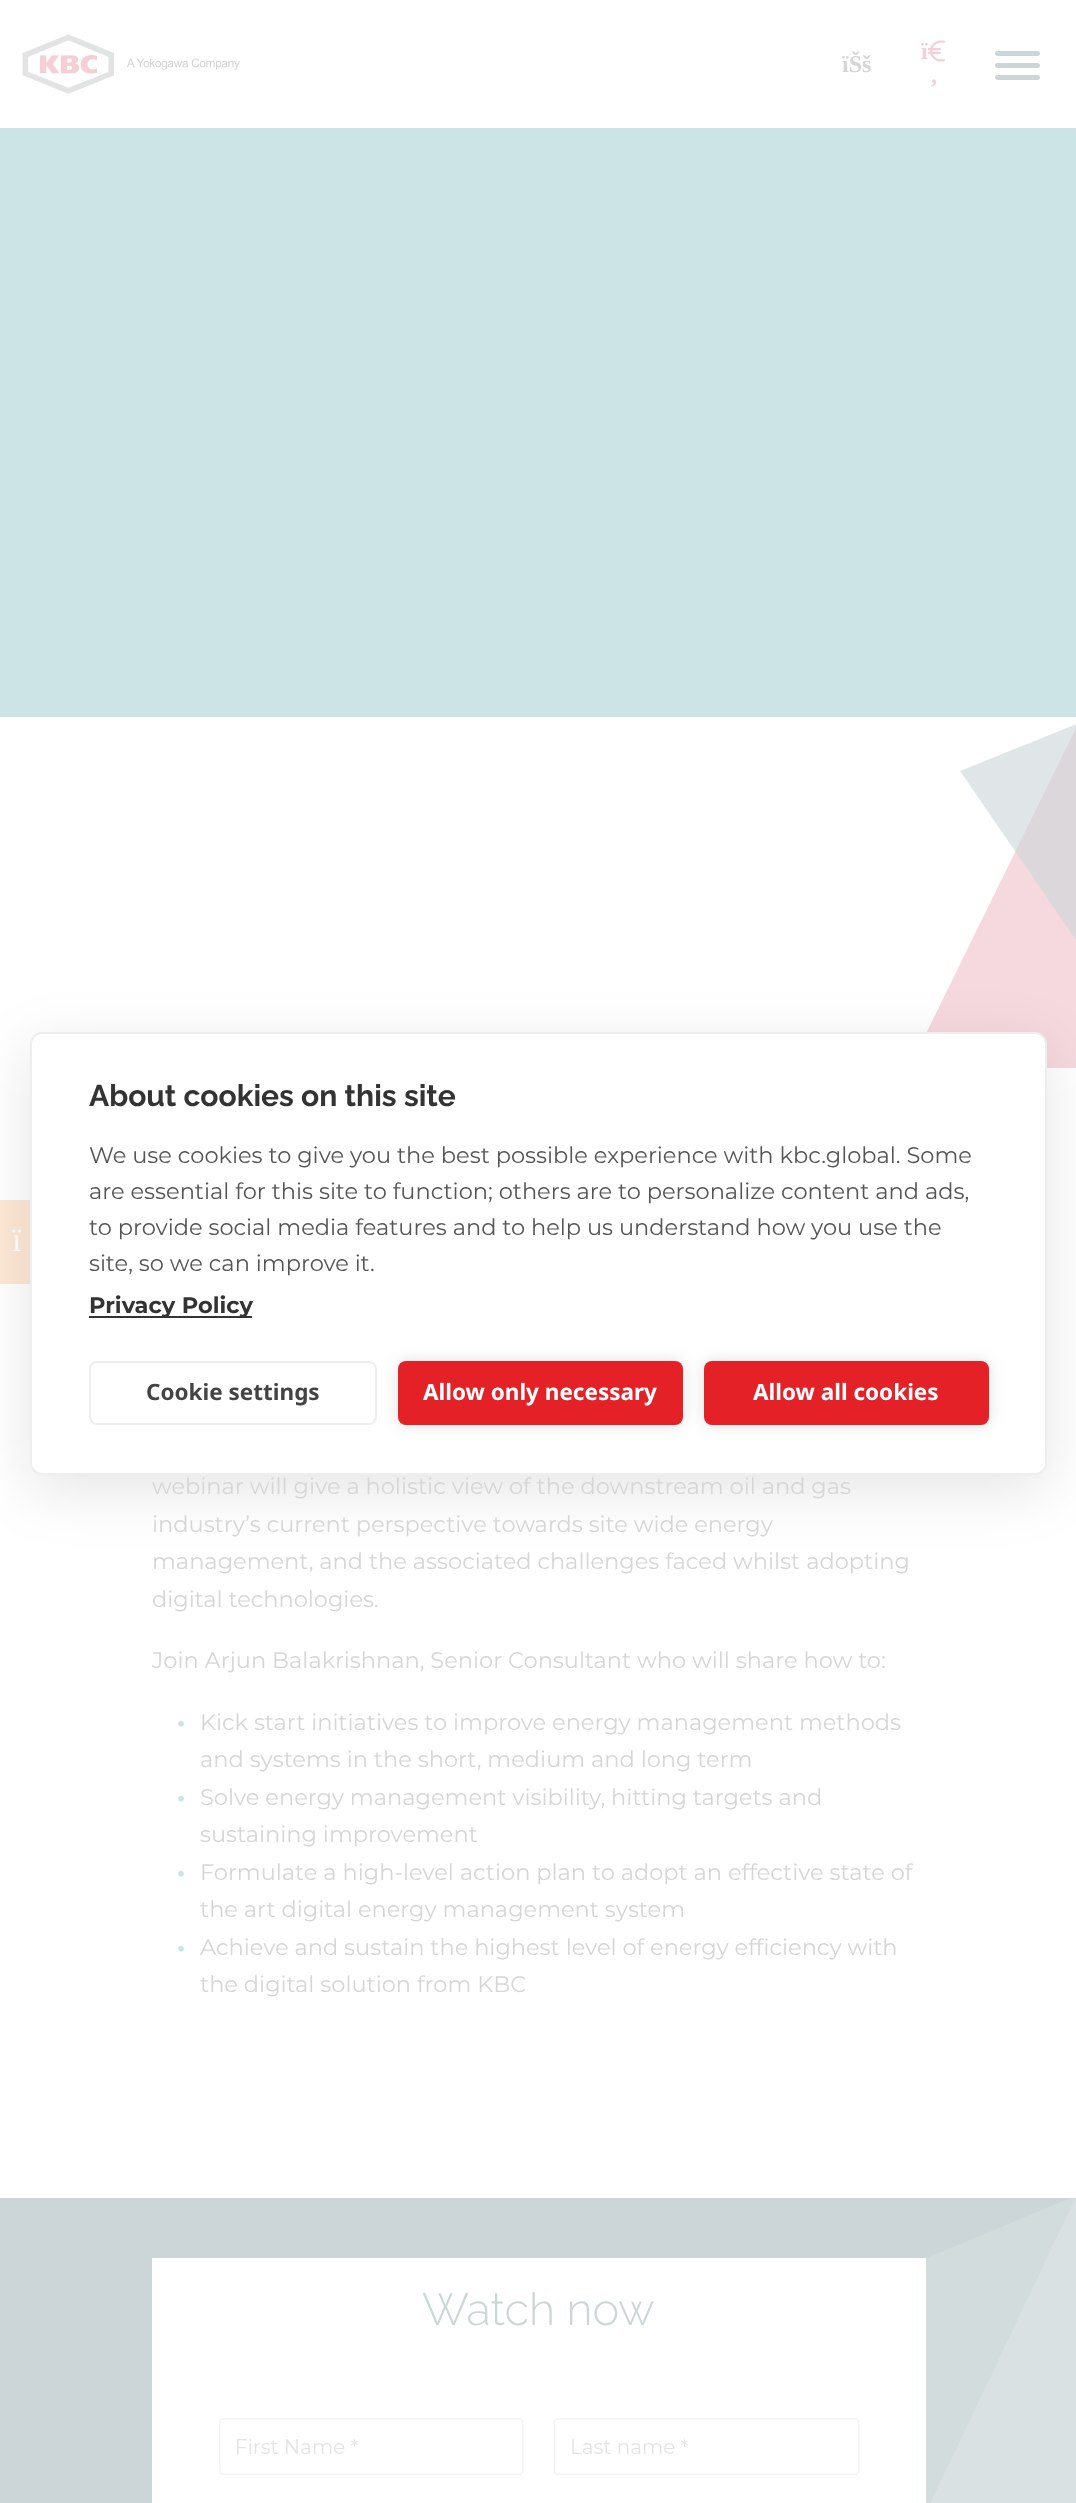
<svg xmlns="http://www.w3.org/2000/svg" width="1076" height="2503">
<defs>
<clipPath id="clip1"><rect x="396" y="2198" width="680" height="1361"/></clipPath>
</defs>
<rect width="100%" height="100%" fill="#fff"/>
<image x="22" y="34" width="218" height="60" href="media/1.png"/>
<text x="842" y="72" style="font-family:Liberation Serif;font-size:24px;font-weight:bold;fill:#d6d6d6">ïŠš</text>
<image x="927" y="40" width="18" height="22" href="media/2.png"/>
<text x="921" y="59" style="font-family:Liberation Serif;font-size:24px;font-weight:bold;fill:#f4cfd5">ï</text>
<text x="930" y="83" style="font-family:Liberation Serif;font-size:24px;font-weight:bold;fill:#f4cfd5">‚</text>
<path d="M997.5 51h19.5v5h-19.5c-1.5 0-2.5-1-2.5-2.5c0-1.5 1-2.5 2.5-2.5z" fill="#ccd6d8"/>
<path d="M1017 51h20.5c1.5 0 2.5 1 2.5 2.5c0 1.5-1 2.5-2.5 2.5h-20.5z" fill="#ccd6d8"/>
<path d="M997.5 63h19.5v5h-19.5c-1.5 0-2.5-1-2.5-2.5c0-1.5 1-2.5 2.5-2.5z" fill="#ccd6d8"/>
<path d="M1017 63h20.5c1.5 0 2.5 1 2.5 2.5c0 1.5-1 2.5-2.5 2.5h-20.5z" fill="#ccd6d8"/>
<path d="M997.5 75h19.5v5h-19.5c-1.5 0-2.5-1-2.5-2.5c0-1.5 1-2.5 2.5-2.5z" fill="#ccd6d8"/>
<path d="M1017 75h20.5c1.5 0 2.5 1 2.5 2.5c0 1.5-1 2.5-2.5 2.5h-20.5z" fill="#ccd6d8"/>
<rect y="128" width="1076" height="589" fill="#cce4e6"/>
<path d="M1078 724v344h-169z" fill="#f6d9de"/>
<path d="M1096 969l-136-198l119-48z" fill="#ccd6d899"/>
<rect y="1200" width="30" height="84" fill="#fde8d5"/>
<text x="12" y="1251" style="font-family:Liberation Serif;font-size:34px;fill:#fff">ï</text>
<rect x="30" y="1047" width="1017" height="443" rx="12" fill="#0000001a" filter="blur(30px)"/>
<rect x="31" y="1033" width="1015" height="441" rx="11" fill="#fff" stroke="#eee" stroke-width="2"/>
<text x="89" y="1106" style="font-family:Raleway;font-size:30px;font-weight:bold;fill:#333">About cookies on this site</text>
<text x="89" y="1163" style="font-family:Montserrat;font-size:22.5px;fill:#555">We use cookies to give you the best possible experience with kbc.global. Some</text>
<text x="89" y="1199" style="font-family:Montserrat;font-size:22.5px;fill:#555">are essential for this site to function; others are to personalize content and ads,</text>
<text x="89" y="1235" style="font-family:Montserrat;font-size:22.5px;fill:#555">to provide social media features and to help us understand how you use the</text>
<text x="89" y="1271" style="font-family:Montserrat;font-size:22.5px;fill:#555">site, so we can improve it.</text>
<rect x="89" y="1316" width="163" height="2" fill="#333"/>
<text x="89" y="1313" style="font-family:Montserrat;font-size:22.5px;font-weight:bold;fill:#333">Privacy Policy</text>
<rect x="90" y="1362" width="286" height="62" rx="7" fill="none" stroke="#eee" stroke-width="2"/>
<text x="146" y="1400" style="font-family:Noto Sans;font-size:22.5px;font-weight:bold;fill:#444">Cookie settings</text>
<rect x="398" y="1361" width="285" height="64" rx="8" fill="#0000001f" filter="blur(7.5px)"/>
<rect x="398" y="1361" width="285" height="64" rx="8" fill="#e42127"/>
<text x="423" y="1400" style="font-family:Noto Sans;font-size:22.5px;font-weight:bold;fill:#fff">Allow only necessary</text>
<rect x="704" y="1361" width="285" height="64" rx="8" fill="#0000001f" filter="blur(7.5px)"/>
<rect x="704" y="1361" width="285" height="64" rx="8" fill="#e42127"/>
<text x="753" y="1400" style="font-family:Noto Sans;font-size:22.5px;font-weight:bold;fill:#fff">Allow all cookies</text>
<text x="152" y="1494" style="font-family:Montserrat;font-size:22.5px;fill:#d6d6d6">webinar will give a holistic view of the downstream oil and gas</text>
<text x="152" y="1532" style="font-family:Montserrat;font-size:22.5px;fill:#d6d6d6">industry’s current perspective towards site wide energy</text>
<text x="152" y="1569" style="font-family:Montserrat;font-size:22.5px;fill:#d6d6d6">management, and the associated challenges faced whilst adopting</text>
<text x="152" y="1607" style="font-family:Montserrat;font-size:22.5px;fill:#d6d6d6">digital technologies.</text>
<text x="152" y="1668" style="font-family:Montserrat;font-size:22.5px;fill:#d6d6d6">Join Arjun Balakrishnan, Senior Consultant who will share how to:</text>
<text x="177" y="1730" style="font-family:Montserrat;font-size:22.5px;font-weight:bold;fill:#cce4e6">•</text>
<text x="200" y="1730" style="font-family:Montserrat;font-size:22.5px;fill:#d6d6d6">Kick start initiatives to improve energy management methods</text>
<text x="200" y="1767" style="font-family:Montserrat;font-size:22.5px;fill:#d6d6d6">and systems in the short, medium and long term</text>
<text x="177" y="1805" style="font-family:Montserrat;font-size:22.5px;font-weight:bold;fill:#cce4e6">•</text>
<text x="200" y="1805" style="font-family:Montserrat;font-size:22.5px;fill:#d6d6d6">Solve energy management visibility, hitting targets and</text>
<text x="200" y="1842" style="font-family:Montserrat;font-size:22.5px;fill:#d6d6d6">sustaining improvement</text>
<text x="177" y="1880" style="font-family:Montserrat;font-size:22.5px;font-weight:bold;fill:#cce4e6">•</text>
<text x="200" y="1880" style="font-family:Montserrat;font-size:22.5px;fill:#d6d6d6">Formulate a high-level action plan to adopt an effective state of</text>
<text x="200" y="1917" style="font-family:Montserrat;font-size:22.5px;fill:#d6d6d6">the art digital energy management system</text>
<text x="177" y="1955" style="font-family:Montserrat;font-size:22.5px;font-weight:bold;fill:#cce4e6">•</text>
<text x="200" y="1955" style="font-family:Montserrat;font-size:22.5px;fill:#d6d6d6">Achieve and sustain the highest level of energy efficiency with</text>
<text x="200" y="1992" style="font-family:Montserrat;font-size:22.5px;fill:#d6d6d6">the digital solution from KBC</text>
<rect y="2198" width="1076" height="305" fill="#ccd6d8"/>
<path d="M1076 2197v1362h-648z" fill="#d4dcde"/>
<g clip-path="url(#clip1)">
<path d="M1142 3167l-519-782l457-191z" fill="#ffffff26"/>
</g>
<rect x="152" y="2258" width="774" height="245" fill="#fff"/>
<text x="422" y="2325" style="font-family:Raleway;font-size:45px;font-weight:300;fill:#ccd6d8">Watch now</text>
<image x="219" y="2418" width="641" height="57" href="media/3.png"/>
</svg>
